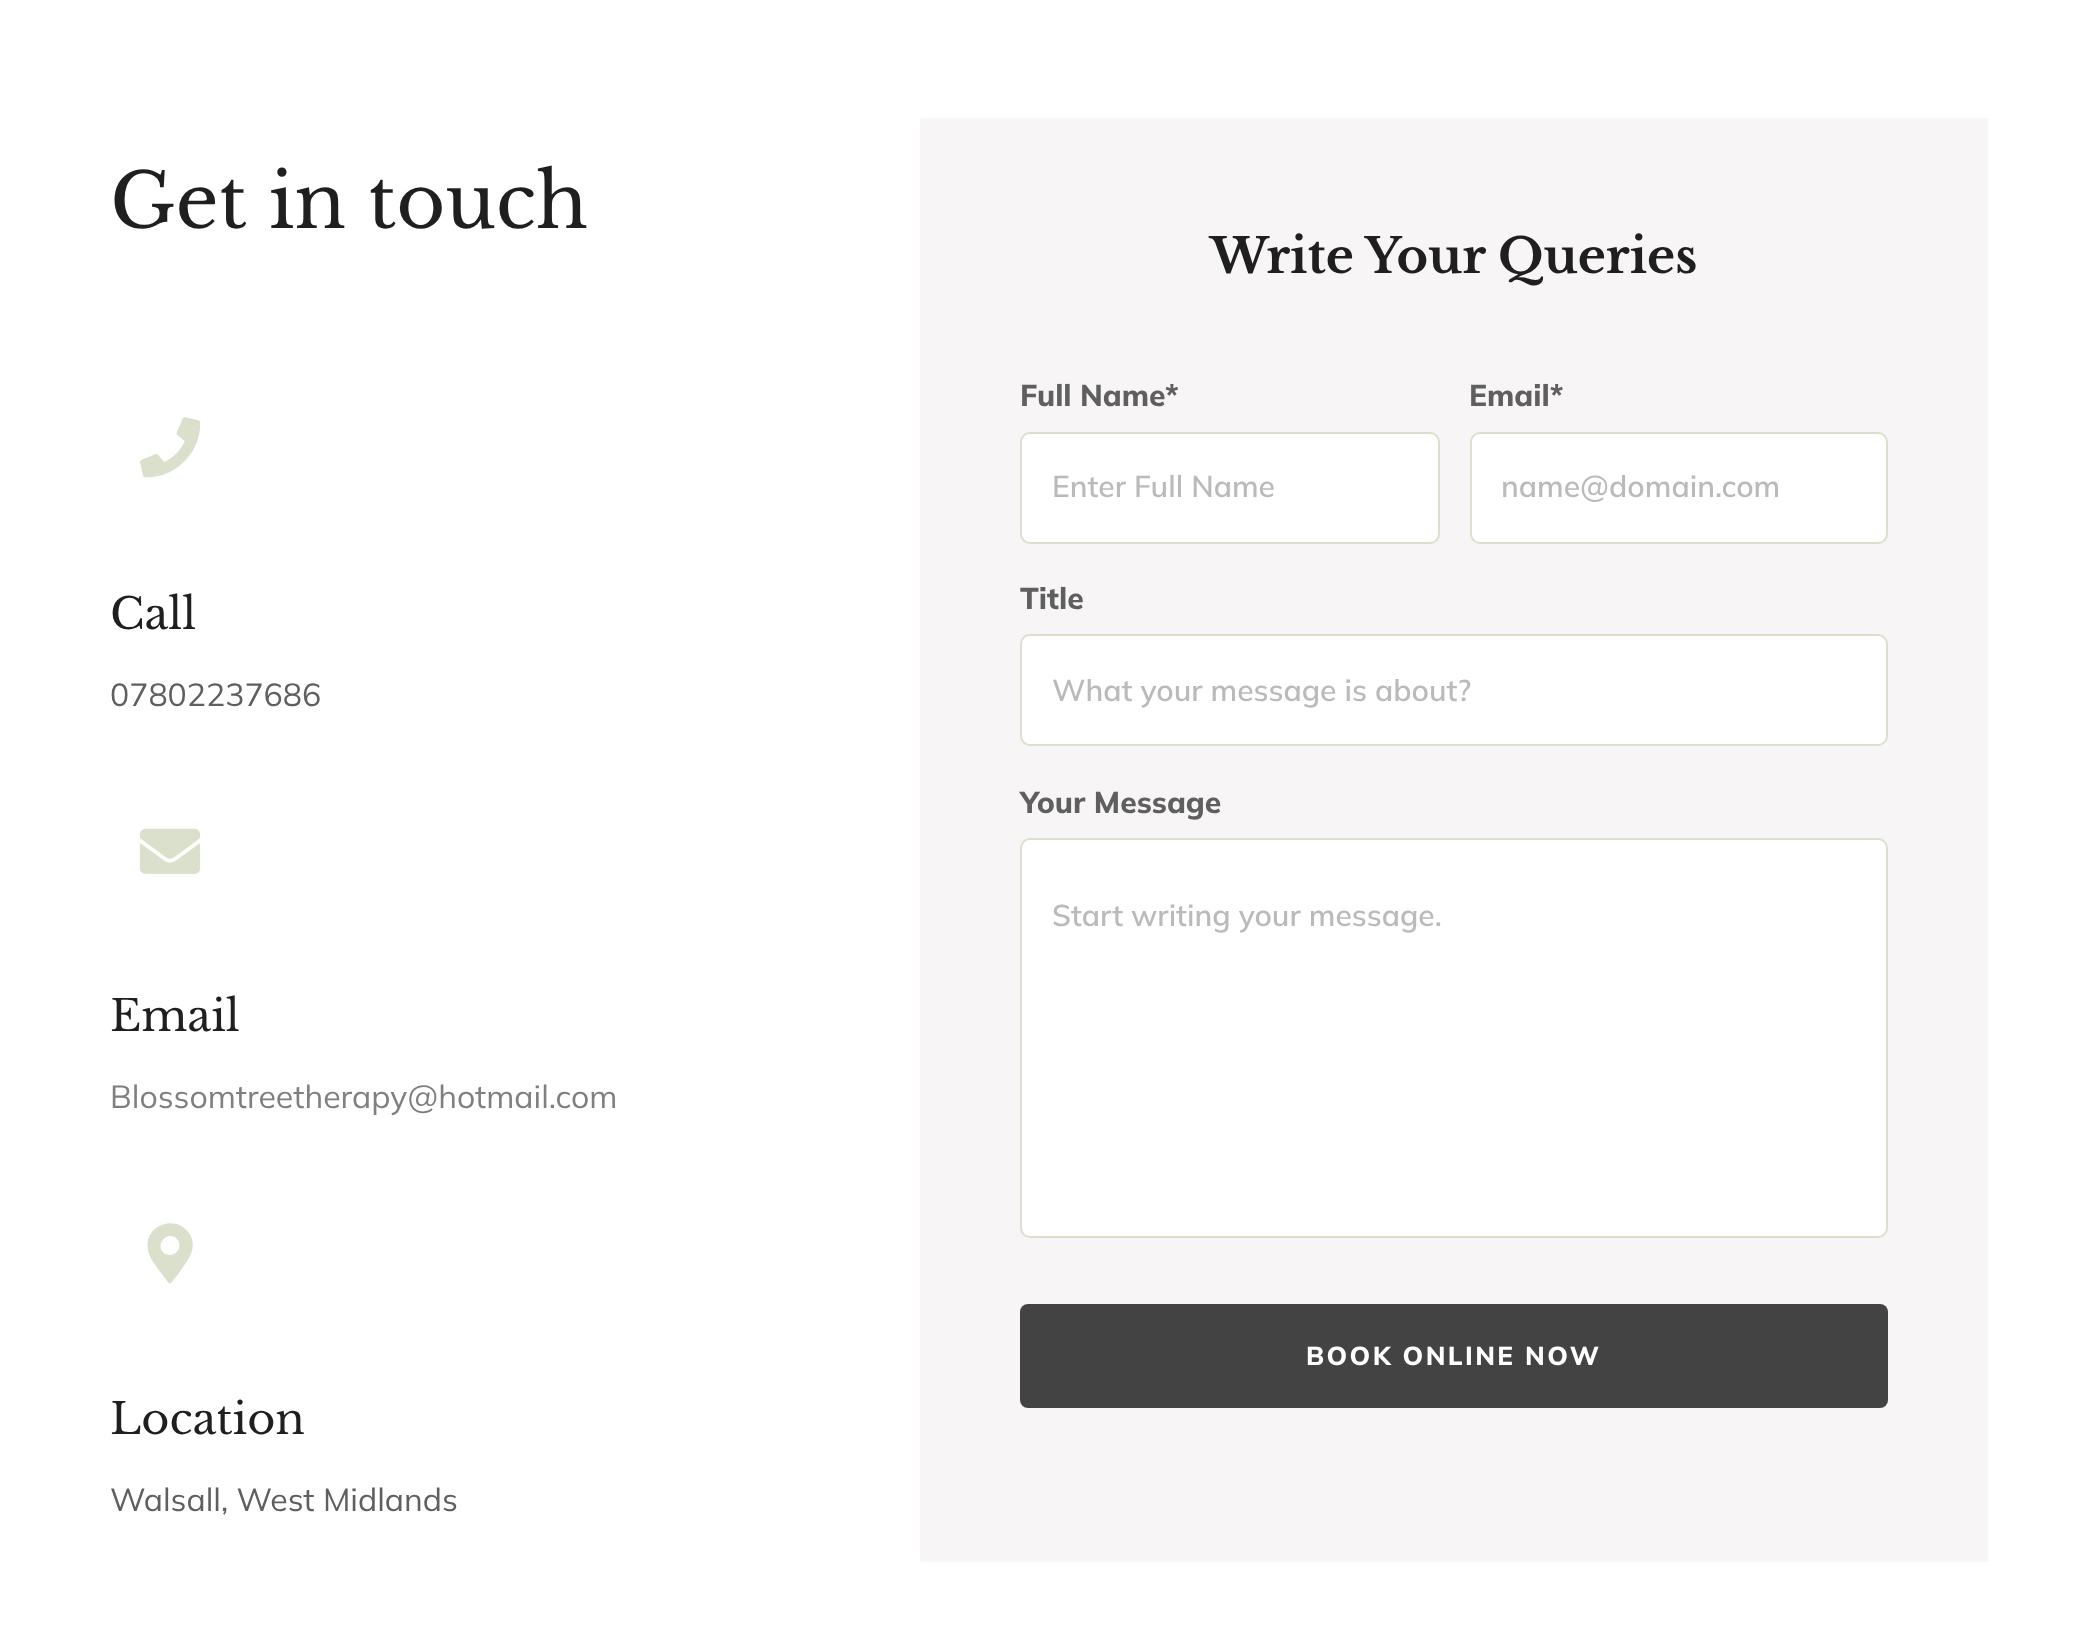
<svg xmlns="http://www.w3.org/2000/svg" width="2100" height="1627">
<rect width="100%" height="100%" fill="#fff"/>
<text x="110" y="228" style="font-family:Libre Baskerville;font-size:75.25px;fill:#1f1f1f">Get in touch</text>
<image x="140" y="417" width="61" height="61" href="media/1.png"/>
<text x="110" y="629" style="font-family:Libre Baskerville;font-size:43px;fill:#1f1f1f">Call</text>
<text x="110" y="706" style="font-family:Mulish;font-size:32px;fill:#5f5f5f">07802237686</text>
<image x="139" y="828" width="62" height="46" href="media/2.png"/>
<text x="110" y="1031" style="font-family:Libre Baskerville;font-size:43px;fill:#1f1f1f">Email</text>
<text x="110" y="1108" style="font-family:Mulish;font-size:32px;fill:#7f7f7f">Blossomtreetherapy@hotmail.com</text>
<path d="M168 1282l-10-13c-4-6-9-12-10-19c-5-24 27-37 41-17c10 15-2 28-10 40l-8 10c-1 1-3 0-3-1zm-5-30c9 9 22-4 14-13c-9-9-22 5-14 13z" fill="#dbe0cc"/>
<text x="110" y="1434" style="font-family:Libre Baskerville;font-size:43px;fill:#1f1f1f">Location</text>
<text x="110" y="1511" style="font-family:Mulish;font-size:32px;fill:#5f5f5f">Walsall, West Midlands</text>
<rect x="919" y="117" width="1070" height="1446" rx="1" fill="#f7f5f5" stroke="#fff" stroke-width="2"/>
<text x="1210" y="273" style="font-family:Libre Baskerville;font-size:48px;font-weight:bold;fill:#1f1f1f">Write Your Queries</text>
<text x="1020" y="406" style="font-family:Mulish;font-size:30px;font-weight:800;fill:#5f5f5f">Full Name*</text>
<rect x="1021" y="433" width="418" height="110" rx="9" fill="#fff" stroke="#dbe0cc" stroke-width="2"/>
<text x="1052" y="497" style="font-family:Mulish;font-size:30px;font-weight:600;fill:#bababa">Enter Full Name</text>
<text x="1469" y="406" style="font-family:Mulish;font-size:30px;font-weight:800;fill:#5f5f5f">Email*</text>
<rect x="1471" y="433" width="416" height="110" rx="9" fill="#fff" stroke="#dbe0cc" stroke-width="2"/>
<text x="1501" y="497" style="font-family:Mulish;font-size:30px;font-weight:600;fill:#bababa">name@domain.com</text>
<text x="1020" y="609" style="font-family:Mulish;font-size:30px;font-weight:800;fill:#5f5f5f">Title</text>
<rect x="1021" y="635" width="866" height="110" rx="9" fill="#fff" stroke="#dbe0cc" stroke-width="2"/>
<text x="1052" y="701" style="font-family:Mulish;font-size:30px;font-weight:600;fill:#bababa">What your message is about?</text>
<text x="1020" y="813" style="font-family:Mulish;font-size:30px;font-weight:800;fill:#5f5f5f">Your Message</text>
<rect x="1021" y="839" width="866" height="398" rx="9" fill="#fff" stroke="#dbe0cc" stroke-width="2"/>
<text x="1052" y="926" style="font-family:Mulish;font-size:30px;font-weight:600;fill:#bababa">Start writing your message.</text>
<rect x="1020" y="1304" width="868" height="104" rx="8" fill="#434343"/>
<text x="1306" y="1365" style="font-family:Mulish;font-size:26px;font-weight:800;letter-spacing:2.4px;fill:#fff">BOOK ONLINE NOW</text>
</svg>
